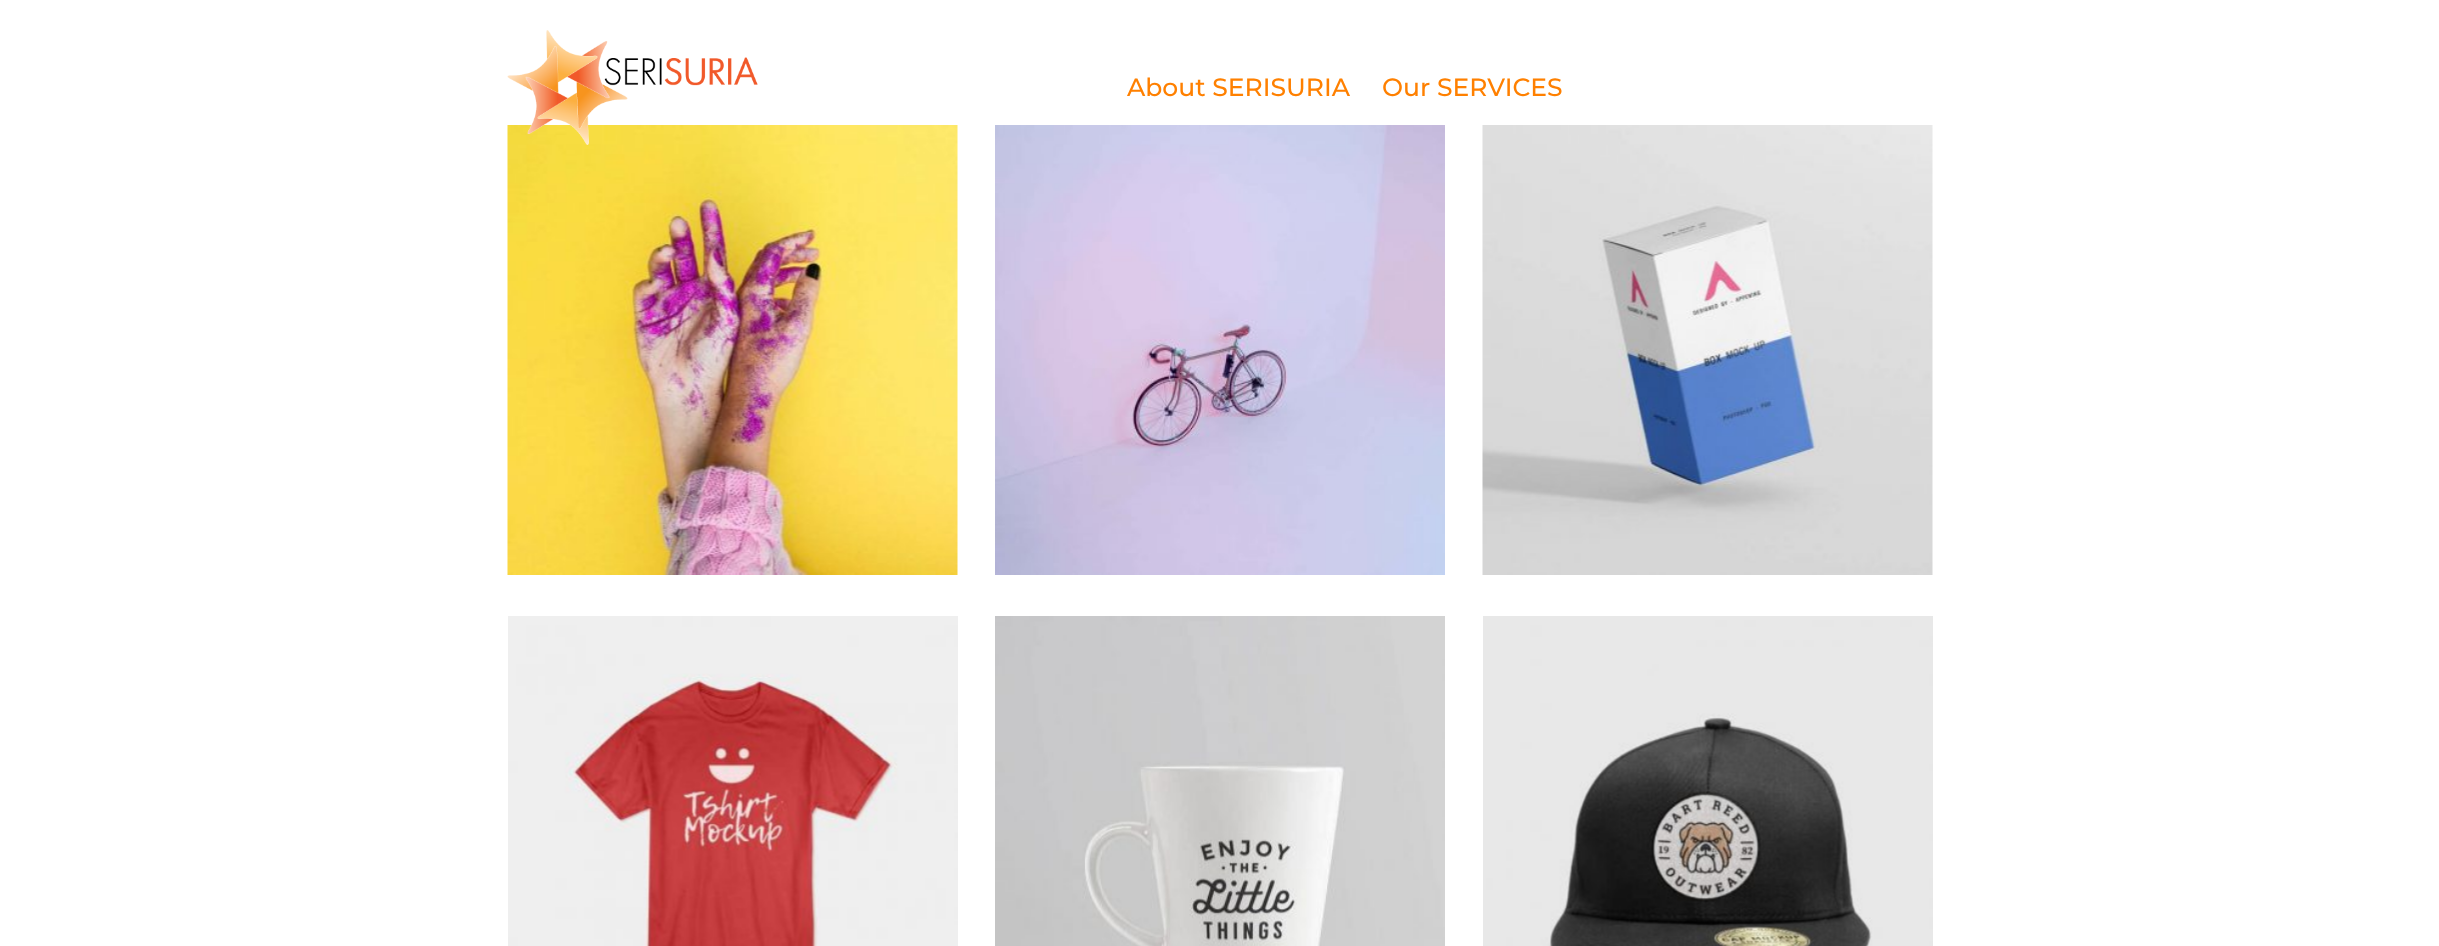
<svg xmlns="http://www.w3.org/2000/svg" width="2439" height="946">
<rect width="100%" height="100%" fill="#fff"/>
<image x="507" y="125" width="451" height="450" href="media/2.png"/>
<image x="507" y="30" width="251" height="115" href="media/1.png"/>
<text x="1127" y="96" style="font-family:Montserrat;font-size:25px;font-weight:500;fill:#ff8000">About SERISURIA</text>
<text x="1382" y="96" style="font-family:Montserrat;font-size:25px;font-weight:500;fill:#ff8000">Our SERVICES</text>
<image x="995" y="125" width="450" height="450" href="media/3.png"/>
<image x="1482" y="125" width="451" height="450" href="media/4.png"/>
<image x="508" y="616" width="450" height="330" href="media/5.png"/>
<image x="995" y="616" width="450" height="330" href="media/6.png"/>
<image x="1483" y="616" width="450" height="330" href="media/7.png"/>
</svg>
